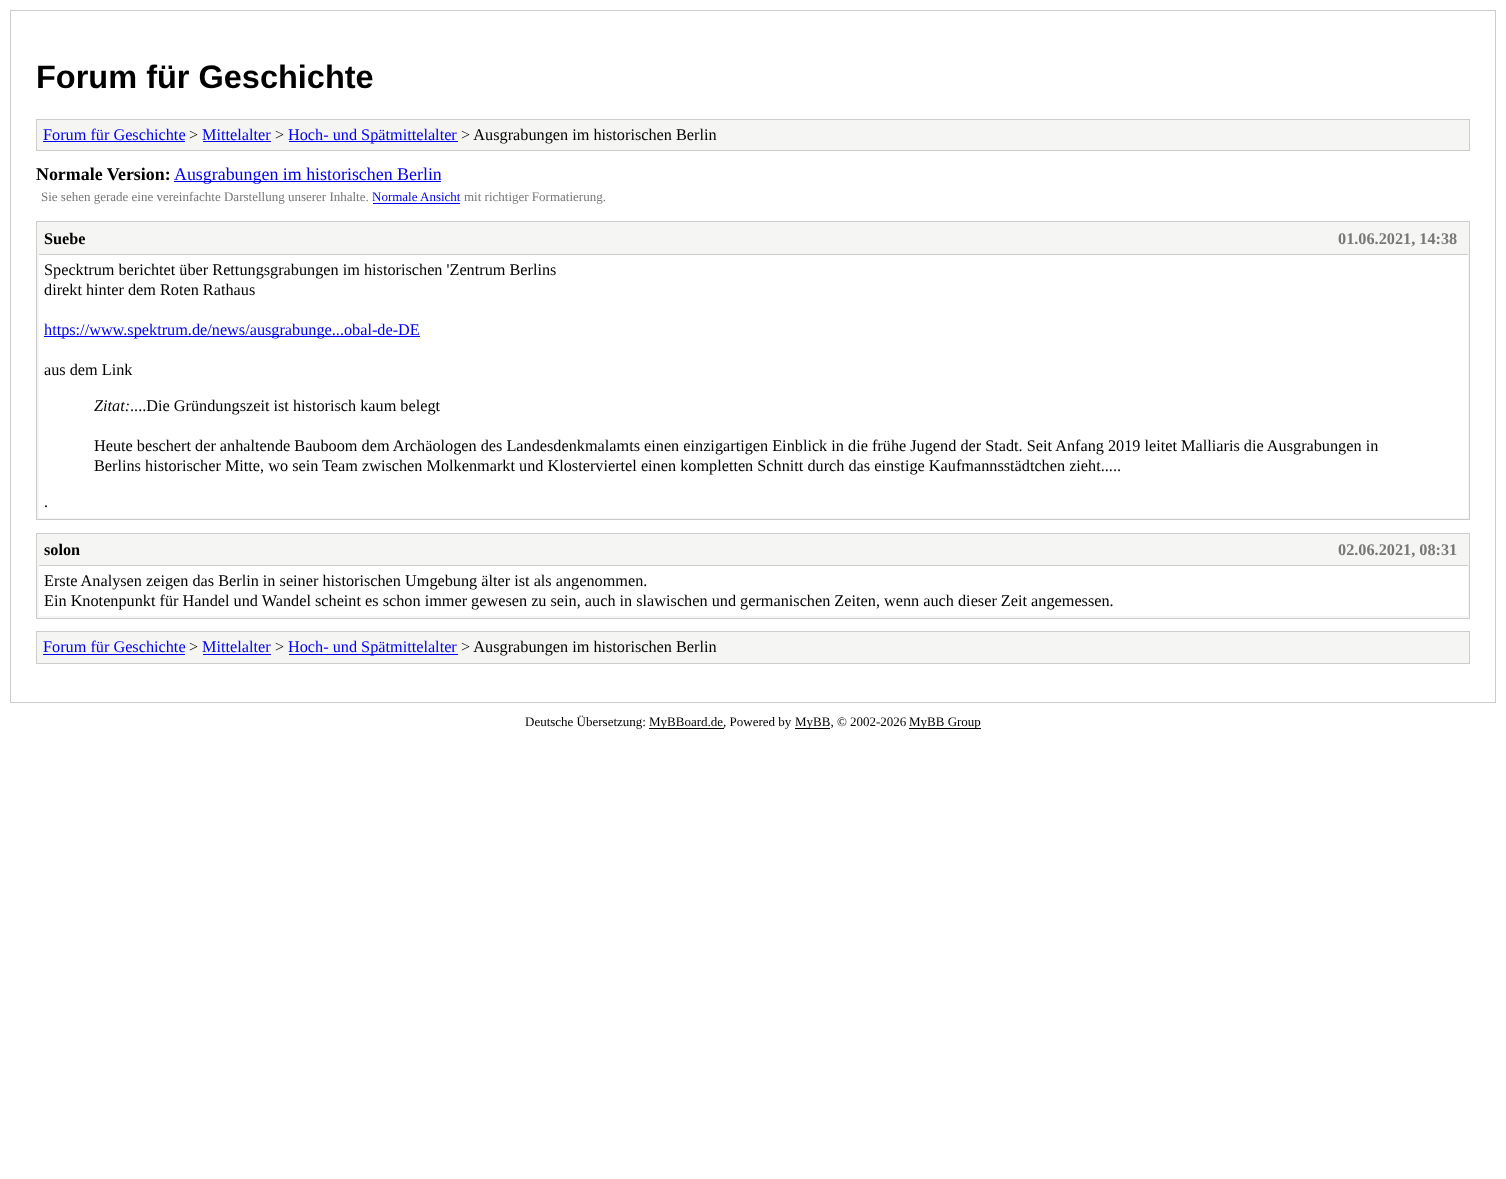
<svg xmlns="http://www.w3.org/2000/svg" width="1506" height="1179">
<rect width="100%" height="100%" fill="#fff"/>
<rect x="10.5" y="10.5" width="1485" height="692" fill="none" stroke="#ccc"/>
<text x="36" y="88" style="font-family:Liberation Sans;font-size:32.5px;font-weight:bold;fill:#000">Forum für Geschichte</text>
<rect x="36.5" y="119.5" width="1433" height="31" fill="#f5f5f4" stroke="#ccc"/>
<text x="43" y="140" style="font-family:Liberation Serif;font-size:16.25px;fill:#00e">Forum für Geschichte</text>
<rect x="43" y="141" width="142" height="1" fill="#00e"/>
<text x="189" y="140" style="font-family:Liberation Serif;font-size:16.25px;fill:#000">&gt;</text>
<text x="202" y="140" style="font-family:Liberation Serif;font-size:16.25px;fill:#00e">Mittelalter</text>
<rect x="203" y="141" width="68" height="1" fill="#00e"/>
<text x="275" y="140" style="font-family:Liberation Serif;font-size:16.25px;fill:#000">&gt;</text>
<rect x="289" y="141" width="169" height="1" fill="#00e"/>
<text x="288" y="140" style="font-family:Liberation Serif;font-size:16.25px;fill:#00e">Hoch- und Spätmittelalter</text>
<text x="461" y="140" style="font-family:Liberation Serif;font-size:16.25px;fill:#000">&gt; Ausgrabungen im historischen Berlin</text>
<text x="36" y="180" style="font-family:Liberation Serif;font-size:17.9px;font-weight:bold;fill:#000">Normale Version:</text>
<rect x="174" y="181" width="267" height="1" fill="#00e"/>
<text x="174" y="180" style="font-family:Liberation Serif;font-size:17.9px;fill:#00e">Ausgrabungen im historischen Berlin</text>
<text x="41" y="201" style="font-family:Liberation Serif;font-size:13px;fill:#777">Sie sehen gerade eine vereinfachte Darstellung unserer Inhalte.</text>
<text x="372" y="201" style="font-family:Liberation Serif;font-size:13px;fill:#00e">Normale Ansicht</text>
<rect x="373" y="203" width="87" height="1" fill="#00e"/>
<text x="464" y="201" style="font-family:Liberation Serif;font-size:13px;fill:#777">mit richtiger Formatierung.</text>
<rect x="36.5" y="221.5" width="1433" height="298" fill="#f5f5f4" stroke="#ccc"/>
<rect x="39" y="254" width="1429" height="1" fill="#ccc"/>
<text x="44" y="244" style="font-family:Liberation Serif;font-size:16.25px;font-weight:bold;fill:#000">Suebe</text>
<text x="1338" y="244" style="font-family:Liberation Serif;font-size:16.25px;font-weight:bold;fill:#777">01.06.2021, 14:38</text>
<rect x="39" y="255" width="1429" height="263" fill="#fff"/>
<text x="44" y="275" style="font-family:Liberation Serif;font-size:16.25px;fill:#000">Specktrum berichtet über Rettungsgrabungen im historischen 'Zentrum Berlins</text>
<text x="44" y="295" style="font-family:Liberation Serif;font-size:16.25px;fill:#000">direkt hinter dem Roten Rathaus</text>
<rect x="44" y="336" width="376" height="1" fill="#00e"/>
<text x="44" y="335" style="font-family:Liberation Serif;font-size:16.25px;fill:#00e">https://www.spektrum.de/news/ausgrabunge...obal-de-DE</text>
<text x="44" y="375" style="font-family:Liberation Serif;font-size:16.25px;fill:#000">aus dem Link</text>
<text x="94" y="411" style="font-family:Liberation Serif;font-size:16.25px;font-style:italic;fill:#000">Zitat:</text>
<text x="130" y="411" style="font-family:Liberation Serif;font-size:16.25px;fill:#000">....Die Gründungszeit ist historisch kaum belegt</text>
<text x="94" y="451" style="font-family:Liberation Serif;font-size:16.25px;fill:#000">Heute beschert der anhaltende Bauboom dem Archäologen des Landesdenkmalamts einen einzigartigen Einblick in die frühe Jugend der Stadt. Seit Anfang 2019 leitet Malliaris die Ausgrabungen in</text>
<text x="94" y="471" style="font-family:Liberation Serif;font-size:16.25px;fill:#000">Berlins historischer Mitte, wo sein Team zwischen Molkenmarkt und Klosterviertel einen kompletten Schnitt durch das einstige Kaufmannsstädtchen zieht.....</text>
<text x="44" y="507" style="font-family:Liberation Serif;font-size:16.25px;fill:#000">.</text>
<rect x="36.5" y="533.5" width="1433" height="85" fill="#f5f5f4" stroke="#ccc"/>
<rect x="39" y="565" width="1429" height="1" fill="#ccc"/>
<text x="44" y="555" style="font-family:Liberation Serif;font-size:16.25px;font-weight:bold;fill:#000">solon</text>
<text x="1338" y="555" style="font-family:Liberation Serif;font-size:16.25px;font-weight:bold;fill:#777">02.06.2021, 08:31</text>
<rect x="39" y="566" width="1429" height="50" fill="#fff"/>
<text x="44" y="586" style="font-family:Liberation Serif;font-size:16.25px;fill:#000">Erste Analysen zeigen das Berlin in seiner historischen Umgebung älter ist als angenommen.</text>
<text x="44" y="606" style="font-family:Liberation Serif;font-size:16.25px;fill:#000">Ein Knotenpunkt für Handel und Wandel scheint es schon immer gewesen zu sein, auch in slawischen und germanischen Zeiten, wenn auch dieser Zeit angemessen.</text>
<rect x="36.5" y="631.5" width="1433" height="32" fill="#f5f5f4" stroke="#ccc"/>
<text x="43" y="652" style="font-family:Liberation Serif;font-size:16.25px;fill:#00e">Forum für Geschichte</text>
<rect x="43" y="654" width="142" height="1" fill="#00e"/>
<text x="189" y="652" style="font-family:Liberation Serif;font-size:16.25px;fill:#000">&gt;</text>
<text x="202" y="652" style="font-family:Liberation Serif;font-size:16.25px;fill:#00e">Mittelalter</text>
<rect x="203" y="654" width="68" height="1" fill="#00e"/>
<text x="275" y="652" style="font-family:Liberation Serif;font-size:16.25px;fill:#000">&gt;</text>
<rect x="289" y="654" width="169" height="1" fill="#00e"/>
<text x="288" y="652" style="font-family:Liberation Serif;font-size:16.25px;fill:#00e">Hoch- und Spätmittelalter</text>
<text x="461" y="652" style="font-family:Liberation Serif;font-size:16.25px;fill:#000">&gt; Ausgrabungen im historischen Berlin</text>
<text x="525" y="726" style="font-family:Liberation Serif;font-size:13px;fill:#000">Deutsche Übersetzung:</text>
<rect x="649" y="728" width="75" height="1" fill="#000"/>
<text x="649" y="726" style="font-family:Liberation Serif;font-size:13px;fill:#000">MyBBoard.de, Powered by</text>
<rect x="795" y="728" width="35" height="1" fill="#000"/>
<text x="795" y="726" style="font-family:Liberation Serif;font-size:13px;fill:#000">MyBB, © 2002-2026</text>
<rect x="909" y="728" width="72" height="1" fill="#000"/>
<text x="909" y="726" style="font-family:Liberation Serif;font-size:13px;fill:#000">MyBB Group</text>
</svg>
